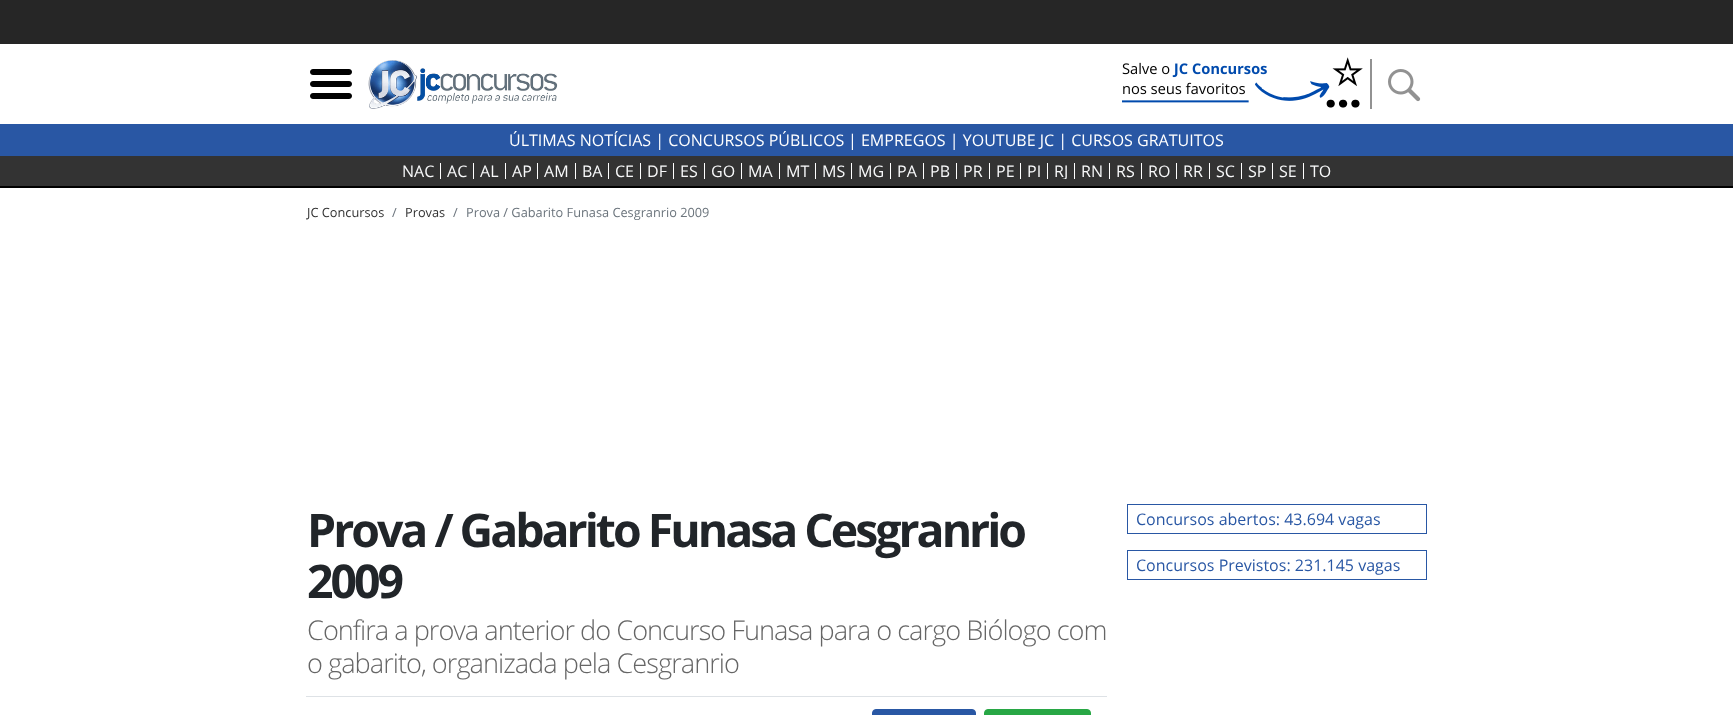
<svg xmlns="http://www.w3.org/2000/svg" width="1733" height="715">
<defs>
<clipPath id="clip1"><rect x="297" y="163" width="1140" height="16"/></clipPath>
</defs>
<rect width="100%" height="100%" fill="#fff"/>
<rect width="1733" height="44" fill="#262626"/>
<image x="310" y="69" width="42" height="30" href="media/1.png"/>
<image x="368" y="60" width="190" height="49" href="media/2.png"/>
<image x="1122" y="57" width="241" height="51" href="media/3.png"/>
<rect x="1370" y="59" width="2" height="50" fill="#929292"/>
<image x="1388" y="69" width="33" height="33" href="media/4.png"/>
<rect y="124" width="1733" height="32" fill="#2957a4"/>
<text x="509" y="146" style="font-family:Open Sans;font-size:16px;fill:#fff">ÚLTIMAS NOTÍCIAS | CONCURSOS PÚBLICOS</text>
<text x="848" y="146" style="font-family:Open Sans;font-size:16px;fill:#fff">| EMPREGOS | YOUTUBE JC | CURSOS GRATUITOS</text>
<rect y="156" width="1733" height="30" fill="#333"/>
<rect y="186" width="1733" height="2" fill="#000"/>
<rect x="440" y="163" width="1" height="16" fill="#fff"/>
<text x="402" y="177" style="font-family:Open Sans;font-size:16px;fill:#f8f9fa">NAC</text>
<rect x="473" y="163" width="1" height="16" fill="#fff"/>
<text x="447" y="177" style="font-family:Open Sans;font-size:16px;fill:#f8f9fa">AC</text>
<rect x="505" y="163" width="1" height="16" fill="#fff"/>
<text x="480" y="177" style="font-family:Open Sans;font-size:16px;fill:#f8f9fa">AL</text>
<rect x="537" y="163" width="1" height="16" fill="#fff"/>
<text x="512" y="177" style="font-family:Open Sans;font-size:16px;fill:#f8f9fa">AP</text>
<rect x="575" y="163" width="1" height="16" fill="#fff"/>
<text x="544" y="177" style="font-family:Open Sans;font-size:16px;fill:#f8f9fa">AM</text>
<rect x="608" y="163" width="1" height="16" fill="#fff"/>
<text x="582" y="177" style="font-family:Open Sans;font-size:16px;fill:#f8f9fa">BA</text>
<rect x="640" y="163" width="1" height="16" fill="#fff"/>
<text x="615" y="177" style="font-family:Open Sans;font-size:16px;fill:#f8f9fa">CE</text>
<rect x="673" y="163" width="1" height="16" fill="#fff"/>
<text x="647" y="177" style="font-family:Open Sans;font-size:16px;fill:#f8f9fa">DF</text>
<rect x="704" y="163" width="1" height="16" fill="#fff"/>
<text x="680" y="177" style="font-family:Open Sans;font-size:16px;fill:#f8f9fa">ES</text>
<rect x="741" y="163" width="1" height="16" fill="#fff"/>
<text x="711" y="177" style="font-family:Open Sans;font-size:16px;fill:#f8f9fa">GO‍</text>
<rect x="779" y="163" width="1" height="16" fill="#fff"/>
<text x="748" y="177" style="font-family:Open Sans;font-size:16px;fill:#f8f9fa">MA</text>
<rect x="815" y="163" width="1" height="16" fill="#fff"/>
<text x="786" y="177" style="font-family:Open Sans;font-size:16px;fill:#f8f9fa">MT</text>
<rect x="851" y="163" width="1" height="16" fill="#fff"/>
<text x="822" y="177" style="font-family:Open Sans;font-size:16px;fill:#f8f9fa">MS</text>
<rect x="890" y="163" width="1" height="16" fill="#fff"/>
<text x="858" y="177" style="font-family:Open Sans;font-size:16px;fill:#f8f9fa">MG</text>
<rect x="923" y="163" width="1" height="16" fill="#fff"/>
<text x="897" y="177" style="font-family:Open Sans;font-size:16px;fill:#f8f9fa">PA</text>
<rect x="956" y="163" width="1" height="16" fill="#fff"/>
<text x="930" y="177" style="font-family:Open Sans;font-size:16px;fill:#f8f9fa">PB</text>
<rect x="989" y="163" width="1" height="16" fill="#fff"/>
<text x="963" y="177" style="font-family:Open Sans;font-size:16px;fill:#f8f9fa">PR</text>
<rect x="1020" y="163" width="1" height="16" fill="#fff"/>
<text x="996" y="177" style="font-family:Open Sans;font-size:16px;fill:#f8f9fa">PE</text>
<rect x="1047" y="163" width="1" height="16" fill="#fff"/>
<text x="1027" y="177" style="font-family:Open Sans;font-size:16px;fill:#f8f9fa">PI</text>
<rect x="1074" y="163" width="1" height="16" fill="#fff"/>
<g clip-path="url(#clip1)">
<text x="1054" y="177" style="font-family:Open Sans;font-size:16px;fill:#f8f9fa">RJ</text>
</g>
<rect x="1109" y="163" width="1" height="16" fill="#fff"/>
<text x="1081" y="177" style="font-family:Open Sans;font-size:16px;fill:#f8f9fa">RN</text>
<rect x="1141" y="163" width="1" height="16" fill="#fff"/>
<text x="1116" y="177" style="font-family:Open Sans;font-size:16px;fill:#f8f9fa">RS</text>
<rect x="1176" y="163" width="1" height="16" fill="#fff"/>
<text x="1148" y="177" style="font-family:Open Sans;font-size:16px;fill:#f8f9fa">RO</text>
<rect x="1209" y="163" width="1" height="16" fill="#fff"/>
<text x="1183" y="177" style="font-family:Open Sans;font-size:16px;fill:#f8f9fa">RR</text>
<rect x="1241" y="163" width="1" height="16" fill="#fff"/>
<text x="1216" y="177" style="font-family:Open Sans;font-size:16px;fill:#f8f9fa">SC</text>
<rect x="1272" y="163" width="1" height="16" fill="#fff"/>
<text x="1248" y="177" style="font-family:Open Sans;font-size:16px;fill:#f8f9fa">SP</text>
<rect x="1303" y="163" width="1" height="16" fill="#fff"/>
<text x="1279" y="177" style="font-family:Open Sans;font-size:16px;fill:#f8f9fa">SE</text>
<text x="1310" y="177" style="font-family:Open Sans;font-size:16px;fill:#f8f9fa">TO</text>
<text x="307" y="217" style="font-family:Open Sans;font-size:12.75px;fill:#333">JC Concursos</text>
<text x="392" y="217" style="font-family:Open Sans;font-size:12.75px;fill:#6c757d">/</text>
<text x="405" y="217" style="font-family:Open Sans;font-size:12.75px;fill:#333">Provas</text>
<text x="453" y="217" style="font-family:Open Sans;font-size:12.75px;fill:#6c757d">/</text>
<text x="466" y="217" style="font-family:Open Sans;font-size:12.75px;fill:#6c757d">Prova / Gabarito Funasa Cesgranrio 2009</text>
<text x="307" y="547" style="font-family:Open Sans;font-size:46.4px;font-weight:bold;letter-spacing:-3px;fill:#212529">Prova / Gabarito Funasa Cesgranrio</text>
<text x="307" y="598" style="font-family:Open Sans;font-size:46.4px;font-weight:bold;letter-spacing:-3px;fill:#212529">2009</text>
<text x="307" y="640" style="font-family:Open Sans;font-size:27.2px;font-weight:300;letter-spacing:-1px;fill:#666">Confira a prova anterior do Concurso Funasa para o cargo Biólogo com</text>
<text x="307" y="673" style="font-family:Open Sans;font-size:27.2px;font-weight:300;letter-spacing:-1px;fill:#666">o gabarito, organizada pela Cesgranrio</text>
<rect x="306" y="696" width="801" height="1" fill="#dee2e6"/>
<rect x="872.5" y="709.5" width="103" height="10" rx="3.5" fill="#2957a4" stroke="#2957a4"/>
<rect x="984.5" y="709.5" width="106" height="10" rx="3.5" fill="#28a745" stroke="#28a745"/>
<rect x="1127.5" y="504.5" width="299" height="29" fill="none" stroke="#2957a4"/>
<text x="1136" y="525" style="font-family:Open Sans;font-size:16px;fill:#2957a4">Concursos abertos: 43.694 vagas</text>
<rect x="1127.5" y="550.5" width="299" height="29" fill="none" stroke="#2957a4"/>
<text x="1136" y="571" style="font-family:Open Sans;font-size:16px;fill:#2957a4">Concursos Previstos: 231.145 vagas</text>
</svg>
